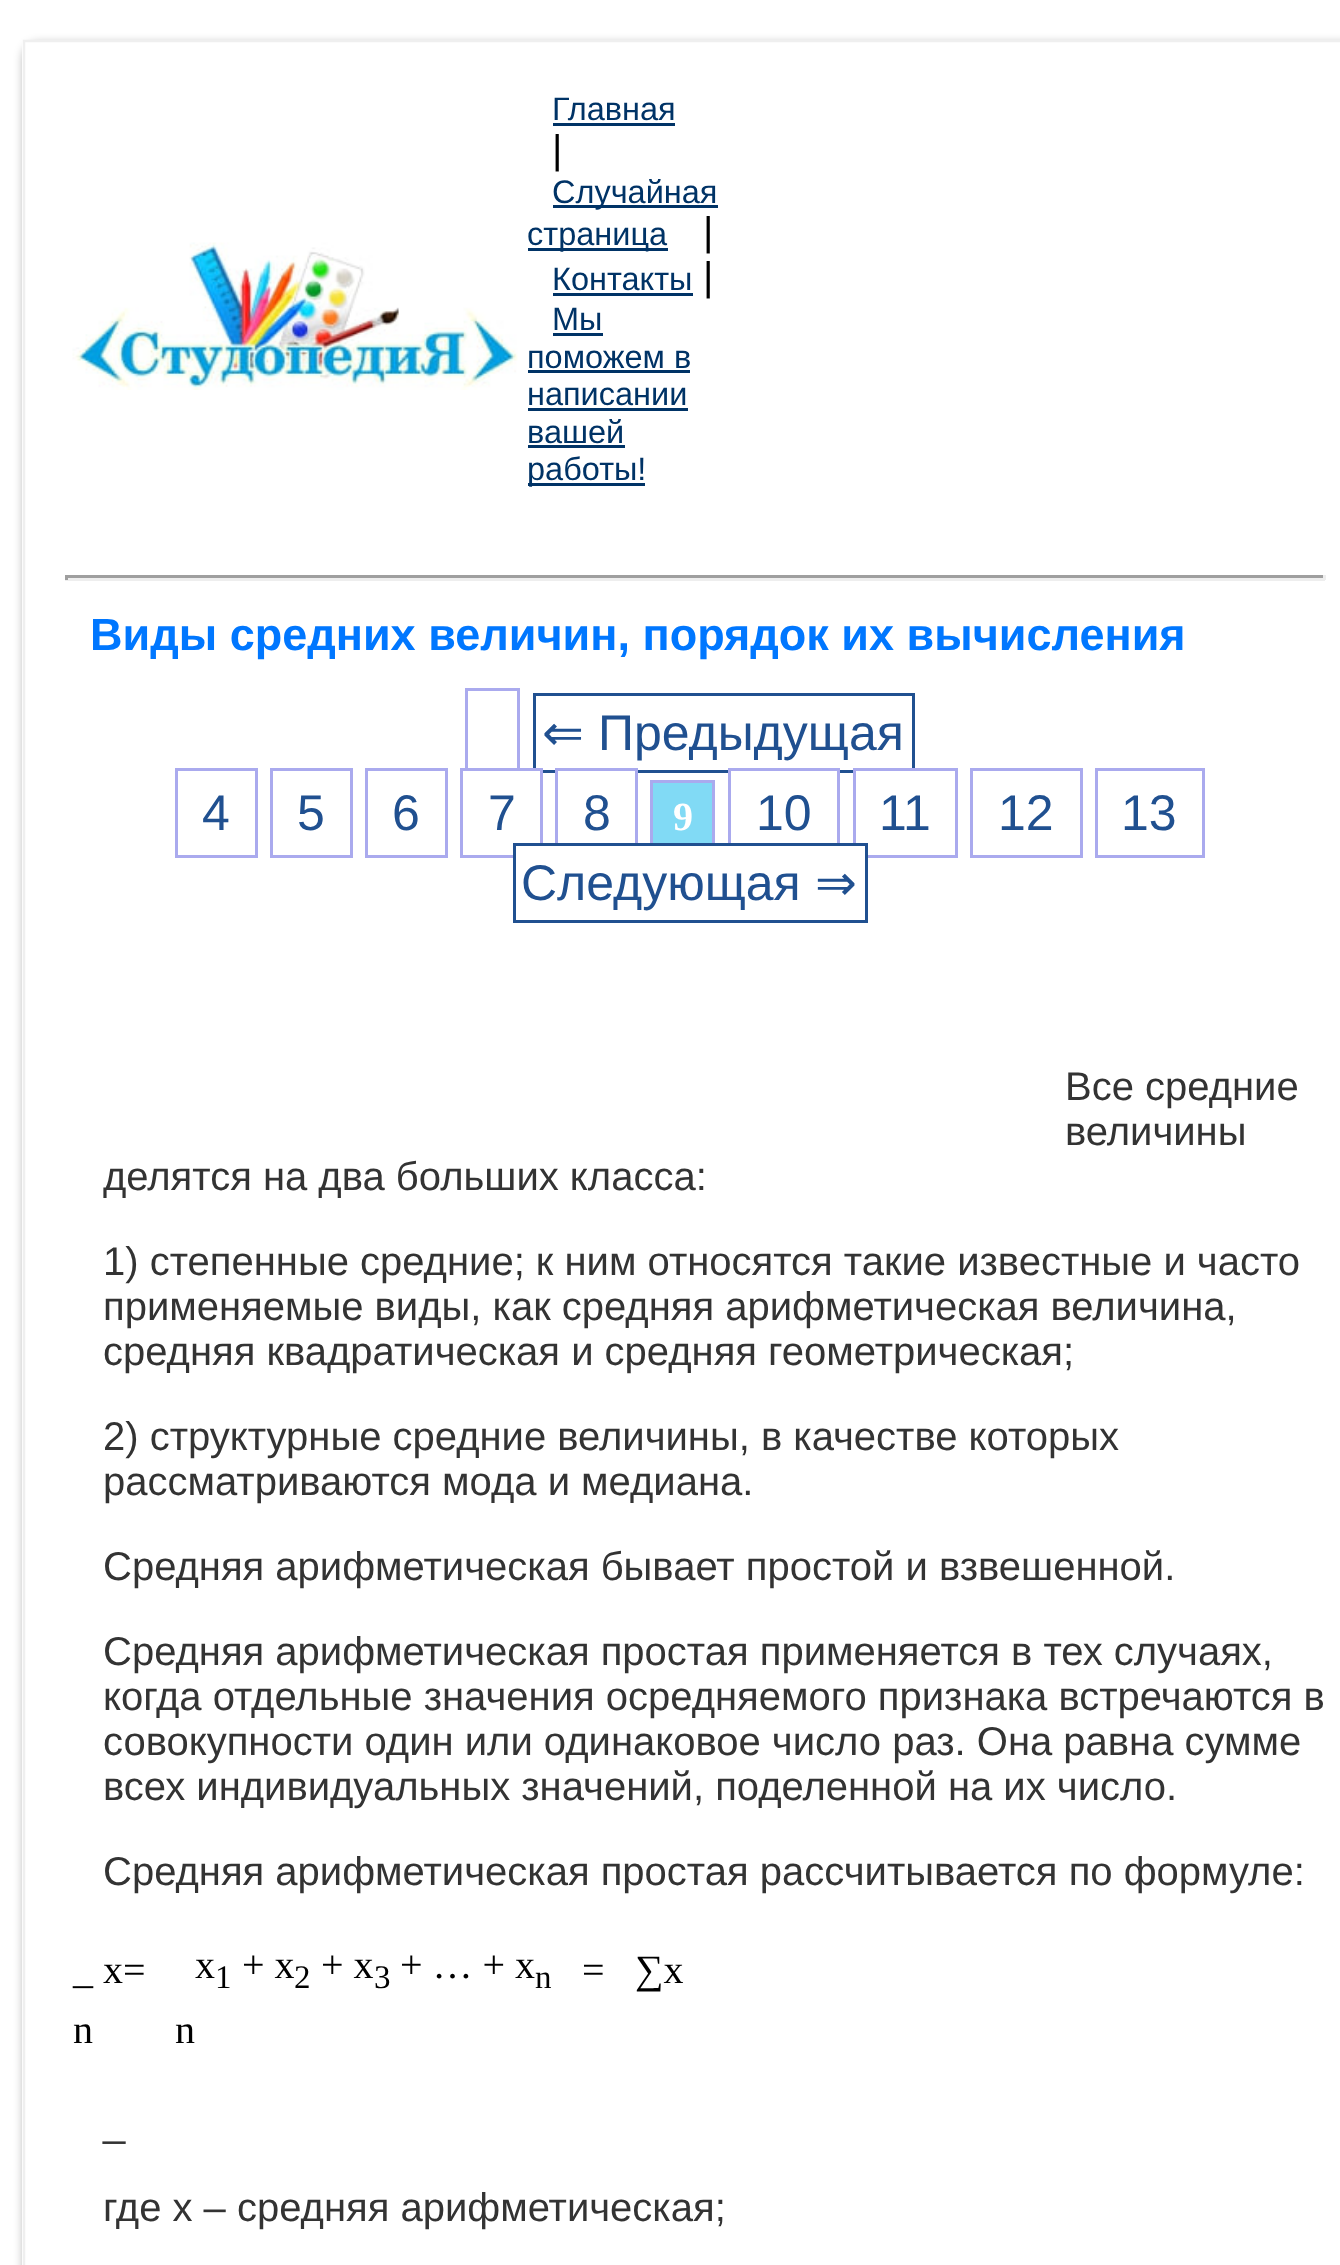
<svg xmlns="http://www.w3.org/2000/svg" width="1340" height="2265">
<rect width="100%" height="100%" fill="#fff"/>
<rect x="23" y="43" width="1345" height="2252" rx="15" fill="#0000004d" filter="blur(5px)"/>
<path d="M22 40h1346v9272c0 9-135 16-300 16h-746c-165 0-300-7-300-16z" fill="#fff"/>
<path d="M24 41h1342v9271.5c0 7.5-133.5 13.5-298.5 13.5h-745c-165 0-298.5-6-298.5-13.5z" fill="none" stroke="#efefef" stroke-width="2.5"/>
<image x="72" y="242" width="446" height="148" href="media/1.png"/>
<text x="552" y="120" style="font-family:Liberation Sans;font-size:32.5px;fill:#036">Главная</text>
<rect x="553" y="123" width="122" height="3" fill="#036"/>
<text x="552" y="163" style="font-family:Liberation Sans;font-size:40px;fill:#000">|</text>
<rect x="553" y="205" width="165" height="3" fill="#036"/>
<text x="552" y="203" style="font-family:Liberation Sans;font-size:32.5px;fill:#036">Случайная</text>
<rect x="528" y="248" width="140" height="3" fill="#036"/>
<text x="527" y="245" style="font-family:Liberation Sans;font-size:32.5px;fill:#036">страница</text>
<text x="703" y="245" style="font-family:Liberation Sans;font-size:40px;fill:#000">|</text>
<text x="552" y="290" style="font-family:Liberation Sans;font-size:32.5px;fill:#036">Контакты</text>
<rect x="553" y="293" width="140" height="3" fill="#036"/>
<text x="703" y="290" style="font-family:Liberation Sans;font-size:40px;fill:#000">|</text>
<text x="552" y="330" style="font-family:Liberation Sans;font-size:32.5px;fill:#036">Мы</text>
<rect x="553" y="333" width="50" height="3" fill="#036"/>
<text x="527" y="368" style="font-family:Liberation Sans;font-size:32.5px;fill:#036">поможем в</text>
<rect x="528" y="370" width="162" height="3" fill="#036"/>
<text x="527" y="405" style="font-family:Liberation Sans;font-size:32.5px;fill:#036">написании</text>
<rect x="528" y="408" width="160" height="3" fill="#036"/>
<text x="527" y="443" style="font-family:Liberation Sans;font-size:32.5px;fill:#036">вашей</text>
<rect x="528" y="445" width="97" height="3" fill="#036"/>
<rect x="528" y="483" width="117" height="3" fill="#036"/>
<text x="527" y="480" style="font-family:Liberation Sans;font-size:32.5px;fill:#036">работы!</text>
<rect x="65" y="575" width="1260" height="3" fill="#9f9f9f"/>
<rect x="1323" y="575" width="3" height="5" fill="#eee"/>
<rect x="65" y="578" width="1260" height="3" fill="#eee"/>
<rect x="65" y="575" width="3" height="5" fill="#9f9f9f"/>
<text x="90" y="650" style="font-family:Liberation Sans;font-size:45px;font-weight:bold;fill:#07f">Виды средних величин, порядок их вычисления</text>
<rect x="466.5" y="689.5" width="52" height="87" fill="none" stroke="#aae" stroke-width="3"/>
<rect x="534.5" y="694.5" width="379" height="77" fill="none" stroke="#205090" stroke-width="3"/>
<text x="542" y="750" style="font-family:DejaVu Sans;font-size:50px;fill:#205090">⇐</text>
<text x="598" y="750" style="font-family:Liberation Sans;font-size:50px;fill:#205090">Предыдущая</text>
<rect x="176.5" y="769.5" width="80" height="87" fill="none" stroke="#aae" stroke-width="3"/>
<text x="202" y="830" style="font-family:Liberation Sans;font-size:50px;fill:#205090">4</text>
<rect x="271.5" y="769.5" width="80" height="87" fill="none" stroke="#aae" stroke-width="3"/>
<text x="297" y="830" style="font-family:Liberation Sans;font-size:50px;fill:#205090">5</text>
<rect x="366.5" y="769.5" width="80" height="87" fill="none" stroke="#aae" stroke-width="3"/>
<text x="392" y="830" style="font-family:Liberation Sans;font-size:50px;fill:#205090">6</text>
<rect x="465" y="771" width="75" height="7" fill="#fff"/>
<rect x="461.5" y="769.5" width="80" height="87" fill="none" stroke="#aae" stroke-width="3"/>
<text x="488" y="830" style="font-family:Liberation Sans;font-size:50px;fill:#205090">7</text>
<rect x="558" y="771" width="77" height="2" fill="#fff"/>
<rect x="556.5" y="769.5" width="80" height="87" fill="none" stroke="#aae" stroke-width="3"/>
<text x="583" y="830" style="font-family:Liberation Sans;font-size:50px;fill:#205090">8</text>
<rect x="653" y="783" width="59" height="60" fill="#81daf5"/>
<rect x="651.5" y="781.5" width="62" height="70" fill="none" stroke="#aae" stroke-width="3"/>
<text x="673" y="830" style="font-family:Liberation Serif;font-size:40px;font-weight:bold;fill:#fff">9</text>
<rect x="731" y="771" width="106" height="2" fill="#fff"/>
<rect x="729.5" y="769.5" width="109" height="87" fill="none" stroke="#aae" stroke-width="3"/>
<text x="756" y="830" style="font-family:Liberation Sans;font-size:50px;fill:#205090">10</text>
<rect x="856" y="771" width="59" height="2" fill="#fff"/>
<rect x="854.5" y="769.5" width="102" height="87" fill="none" stroke="#aae" stroke-width="3"/>
<text x="879" y="830" style="font-family:Liberation Sans;font-size:50px;fill:#205090">11</text>
<rect x="971.5" y="769.5" width="110" height="87" fill="none" stroke="#aae" stroke-width="3"/>
<text x="998" y="830" style="font-family:Liberation Sans;font-size:50px;fill:#205090">12</text>
<rect x="1096.5" y="769.5" width="107" height="87" fill="none" stroke="#aae" stroke-width="3"/>
<text x="1121" y="830" style="font-family:Liberation Sans;font-size:50px;fill:#205090">13</text>
<rect x="516" y="846" width="349" height="12" fill="#fff"/>
<rect x="514.5" y="844.5" width="352" height="77" fill="none" stroke="#205090" stroke-width="3"/>
<text x="521" y="900" style="font-family:Liberation Sans;font-size:50px;fill:#205090">Следующая</text>
<text x="815" y="900" style="font-family:DejaVu Sans;font-size:50px;fill:#205090">⇒</text>
<text x="1065" y="1100" style="font-family:Liberation Sans;font-size:40px;fill:#333">Все средние</text>
<text x="1065" y="1145" style="font-family:Liberation Sans;font-size:40px;fill:#333">величины</text>
<text x="103" y="1190" style="font-family:Liberation Sans;font-size:40px;fill:#333">делятся на два больших класса:</text>
<text x="103" y="1275" style="font-family:Liberation Sans;font-size:40px;fill:#333">1) степенные средние; к ним относятся такие известные и часто</text>
<text x="103" y="1320" style="font-family:Liberation Sans;font-size:40px;fill:#333">применяемые виды, как средняя арифметическая величина,</text>
<text x="103" y="1365" style="font-family:Liberation Sans;font-size:40px;fill:#333">средняя квадратическая и средняя геометрическая;</text>
<text x="103" y="1450" style="font-family:Liberation Sans;font-size:40px;fill:#333">2) структурные средние величины, в качестве которых</text>
<text x="103" y="1495" style="font-family:Liberation Sans;font-size:40px;fill:#333">рассматриваются мода и медиана.</text>
<text x="103" y="1580" style="font-family:Liberation Sans;font-size:40px;fill:#333">Средняя арифметическая бывает простой и взвешенной.</text>
<text x="103" y="1665" style="font-family:Liberation Sans;font-size:40px;fill:#333">Средняя арифметическая простая применяется в тех случаях,</text>
<text x="103" y="1710" style="font-family:Liberation Sans;font-size:40px;fill:#333">когда отдельные значения осредняемого признака встречаются в</text>
<text x="103" y="1755" style="font-family:Liberation Sans;font-size:40px;fill:#333">совокупности один или одинаковое число раз. Она равна сумме</text>
<text x="103" y="1800" style="font-family:Liberation Sans;font-size:40px;fill:#333">всех индивидуальных значений, поделенной на их число.</text>
<text x="103" y="1885" style="font-family:Liberation Sans;font-size:40px;fill:#333">Средняя арифметическая простая рассчитывается по формуле:</text>
<text x="73" y="1983" style="font-family:Liberation Serif;font-size:40px;fill:#000">_ х=</text>
<text x="195" y="1978" style="font-family:Liberation Serif;font-size:40px;fill:#000">х</text>
<text x="215" y="1988" style="font-family:Liberation Serif;font-size:33px;fill:#000">1</text>
<text x="242" y="1978" style="font-family:Liberation Serif;font-size:40px;fill:#000">+ х</text>
<text x="294" y="1988" style="font-family:Liberation Serif;font-size:33px;fill:#000">2</text>
<text x="321" y="1978" style="font-family:Liberation Serif;font-size:40px;fill:#000">+ х</text>
<text x="374" y="1988" style="font-family:Liberation Serif;font-size:33px;fill:#000">3</text>
<text x="400" y="1978" style="font-family:Liberation Serif;font-size:40px;fill:#000">+ … + х</text>
<text x="535" y="1988" style="font-family:Liberation Serif;font-size:33px;fill:#000">n</text>
<text x="582" y="1983" style="font-family:Liberation Serif;font-size:40px;fill:#000">=</text>
<text x="635" y="1983" style="font-family:Liberation Serif;font-size:40px;fill:#000">∑х</text>
<text x="73" y="2043" style="font-family:Liberation Serif;font-size:40px;fill:#000">n</text>
<text x="175" y="2043" style="font-family:Liberation Serif;font-size:40px;fill:#000">n</text>
<text x="103" y="2136" style="font-family:Liberation Sans;font-size:40px;fill:#333">_</text>
<text x="103" y="2221" style="font-family:Liberation Sans;font-size:40px;fill:#333">где х – средняя арифметическая;</text>
</svg>
